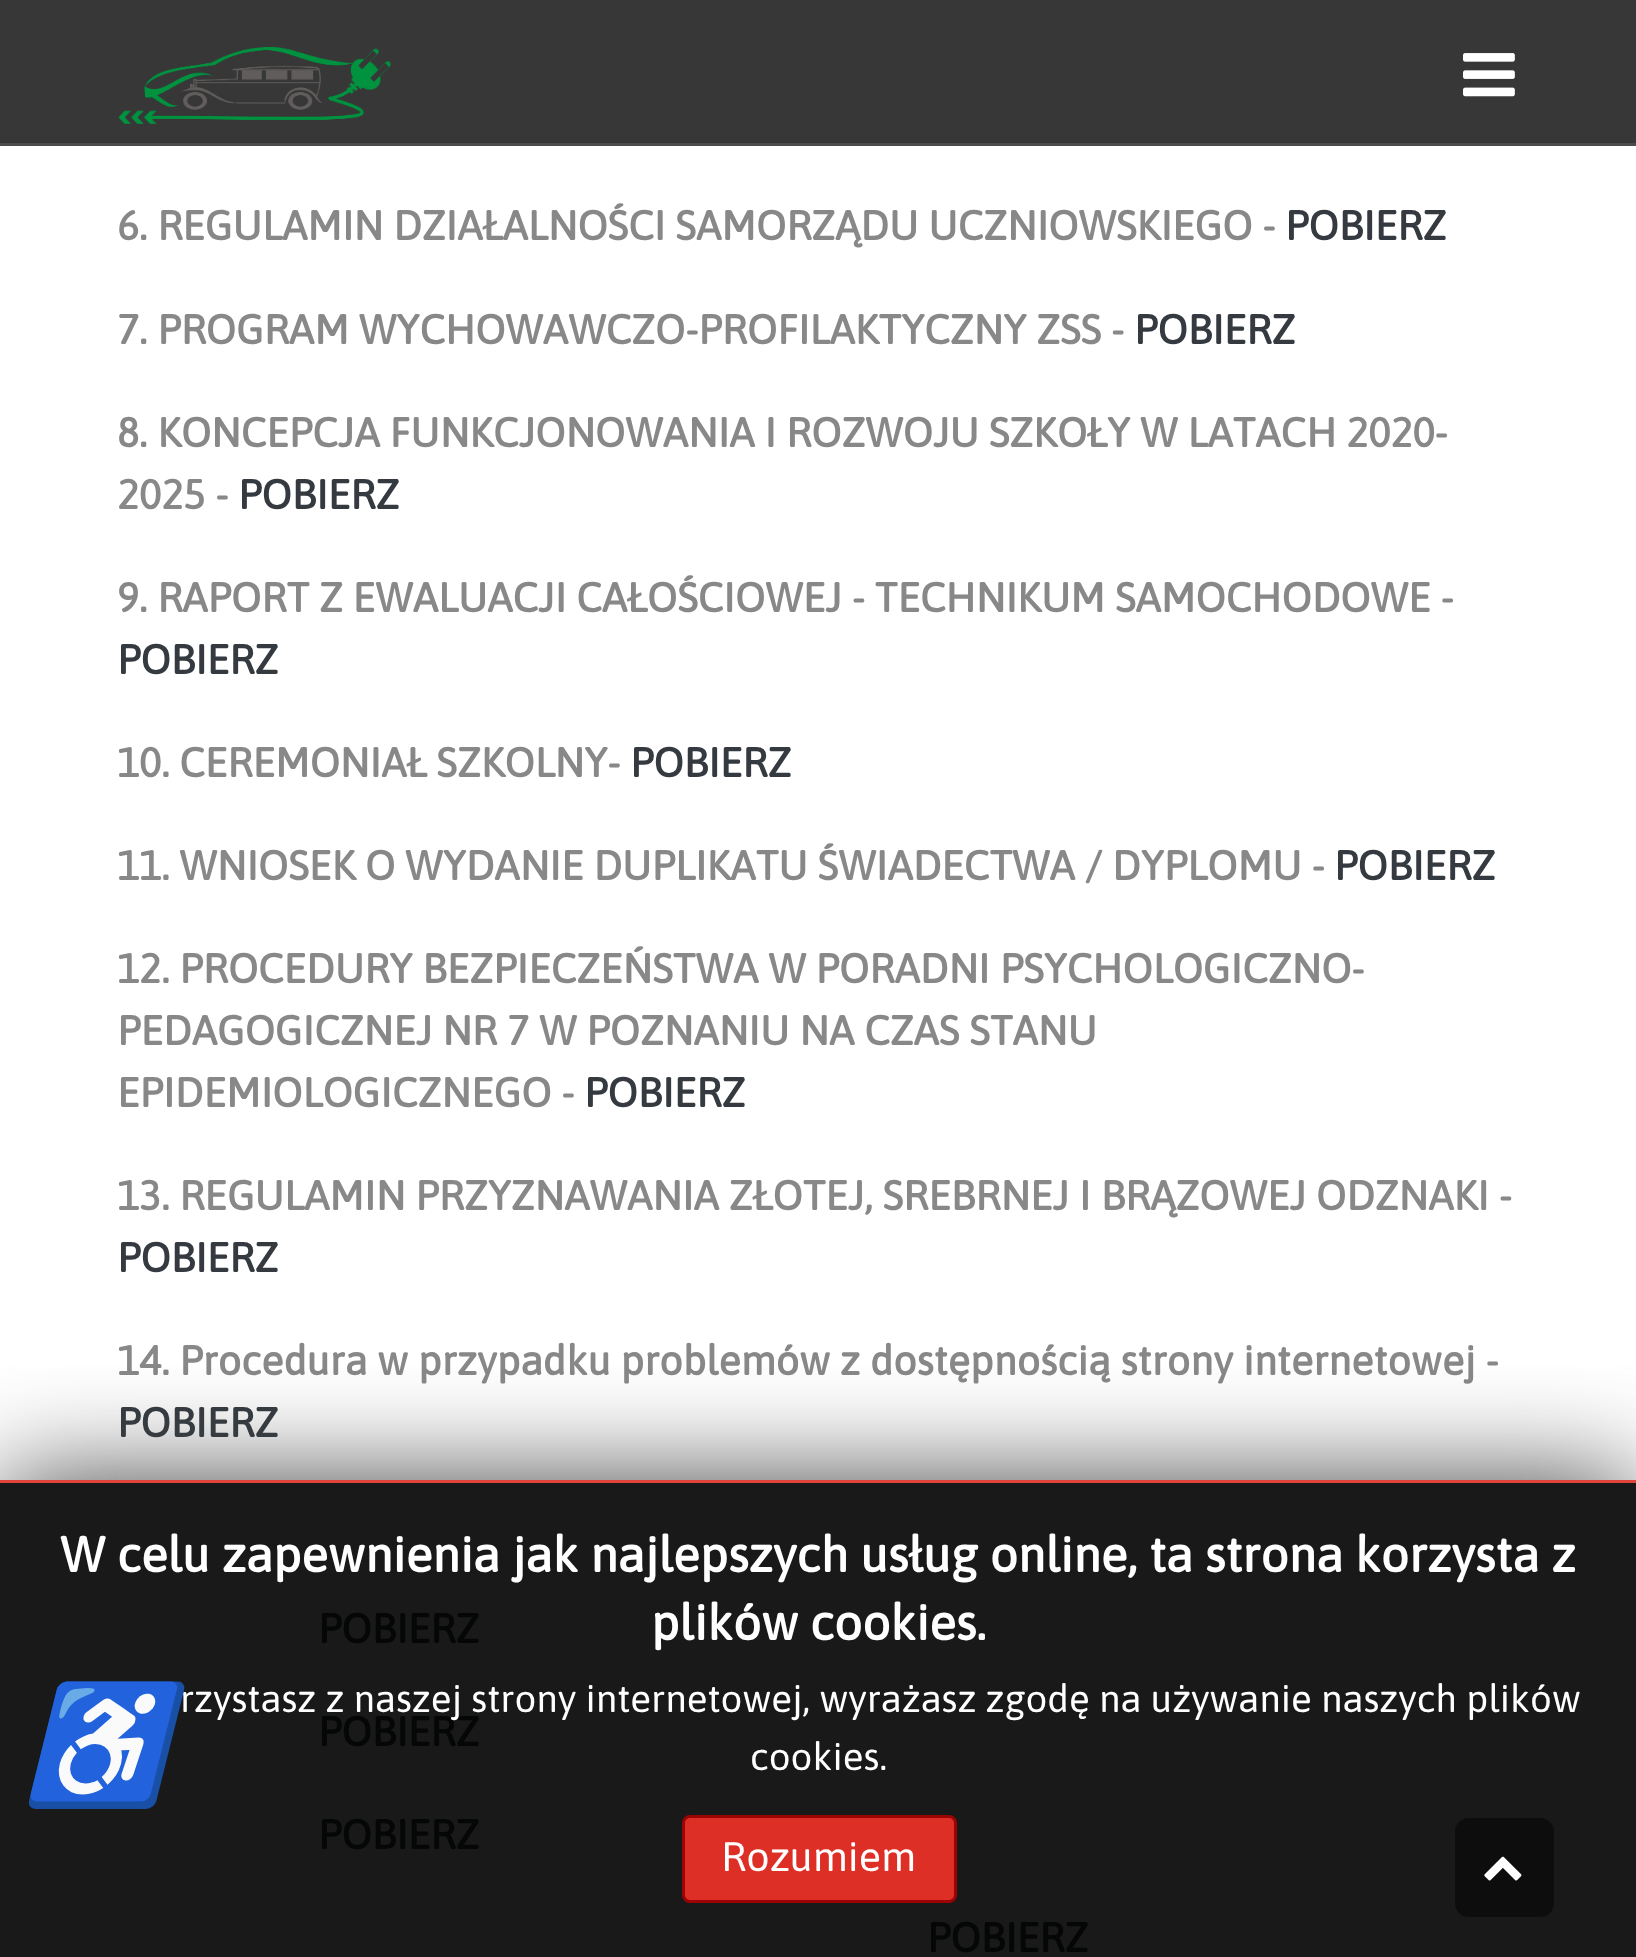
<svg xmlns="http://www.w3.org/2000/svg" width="1636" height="1957">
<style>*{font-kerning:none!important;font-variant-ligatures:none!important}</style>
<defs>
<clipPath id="clip1"><rect x="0" y="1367" width="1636" height="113"/></clipPath>
</defs>
<rect width="100%" height="100%" fill="#fff"/>
<rect y="1483" width="1636" height="474" fill="#191919"/>
<rect width="1636" height="143" fill="#373737"/>
<rect y="143" width="1636" height="3" fill="#4b4b4b"/>
<image x="118" y="47" width="273" height="77" href="media/1.png"/>
<image x="1463" y="53" width="52" height="44" href="media/2.png"/>
<text x="117" y="240" style="font-family:Asap;font-size:41.25px;font-weight:bold;fill:#888">6. REGULAMIN DZIAŁALNOŚCI SAMORZĄDU UCZNIOWSKIEGO -</text>
<text x="1285" y="240" style="font-family:Asap;font-size:41.25px;font-weight:bold;fill:#343a40">POBIERZ</text>
<text x="117" y="344" style="font-family:Asap;font-size:41.25px;font-weight:bold;fill:#888">7. PROGRAM WYCHOWAWCZO-PROFILAKTYCZNY ZSS -</text>
<text x="1134" y="344" style="font-family:Asap;font-size:41.25px;font-weight:bold;fill:#343a40">POBIERZ</text>
<text x="117" y="447" style="font-family:Asap;font-size:41.25px;font-weight:bold;fill:#888">8. KONCEPCJA FUNKCJONOWANIA I ROZWOJU SZKOŁY</text>
<text x="1140" y="447" style="font-family:Asap;font-size:41.25px;font-weight:bold;fill:#888">W LATACH 2020-</text>
<text x="117" y="509" style="font-family:Asap;font-size:41.25px;font-weight:bold;fill:#888">2025 -</text>
<text x="238" y="509" style="font-family:Asap;font-size:41.25px;font-weight:bold;fill:#343a40">POBIERZ</text>
<text x="117" y="612" style="font-family:Asap;font-size:41.25px;font-weight:bold;fill:#888">9. RAPORT Z EWALUACJI CAŁOŚCIOWEJ - TECHNIKUM SAMOCHODOWE -</text>
<text x="117" y="674" style="font-family:Asap;font-size:41.25px;font-weight:bold;fill:#343a40">POBIERZ</text>
<text x="117" y="777" style="font-family:Asap;font-size:41.25px;font-weight:bold;fill:#888">10. CEREMONIAŁ SZKOLNY-</text>
<text x="630" y="777" style="font-family:Asap;font-size:41.25px;font-weight:bold;fill:#343a40">POBIERZ</text>
<text x="117" y="880" style="font-family:Asap;font-size:41.25px;font-weight:bold;fill:#888">11. WNIOSEK O WYDANIE DUPLIKATU ŚWIADECTWA / DYPLOMU -</text>
<text x="1334" y="880" style="font-family:Asap;font-size:41.25px;font-weight:bold;fill:#343a40">POBIERZ</text>
<text x="117" y="983" style="font-family:Asap;font-size:41.25px;font-weight:bold;fill:#888">12. PROCEDURY BEZPIECZEŃSTWA W PORADNI PSYCHOLOGICZNO-</text>
<text x="117" y="1045" style="font-family:Asap;font-size:41.25px;font-weight:bold;fill:#888">PEDAGOGICZNEJ NR 7 W POZNANIU NA CZAS STANU</text>
<text x="117" y="1107" style="font-family:Asap;font-size:41.25px;font-weight:bold;fill:#888">EPIDEMIOLOGICZNEGO -</text>
<text x="584" y="1107" style="font-family:Asap;font-size:41.25px;font-weight:bold;fill:#343a40">POBIERZ</text>
<text x="117" y="1210" style="font-family:Asap;font-size:41.25px;font-weight:bold;fill:#888">13. REGULAMIN PRZYZNAWANIA ZŁOTEJ, SREBRNEJ I BRĄZOWEJ ODZNAKI -</text>
<text x="117" y="1272" style="font-family:Asap;font-size:41.25px;font-weight:bold;fill:#343a40">POBIERZ</text>
<text x="117" y="1375" style="font-family:Asap;font-size:41.25px;font-weight:bold;fill:#888">14. Procedura w przypadku problemów z dostępnością strony internetowej -</text>
<text x="117" y="1437" style="font-family:Asap;font-size:41.25px;font-weight:bold;fill:#343a40">POBIERZ</text>
<text x="318" y="1643" style="font-family:Asap;font-size:41.25px;font-weight:bold;fill:#050606">POBIERZ</text>
<text x="318" y="1746" style="font-family:Asap;font-size:41.25px;font-weight:bold;fill:#050606">POBIERZ</text>
<text x="318" y="1849" style="font-family:Asap;font-size:41.25px;font-weight:bold;fill:#050606">POBIERZ</text>
<text x="927" y="1952" style="font-family:Asap;font-size:41.25px;font-weight:bold;fill:#050606">POBIERZ</text>
<g clip-path="url(#clip1)">
<rect y="1480" width="1636" height="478" fill="#444" filter="blur(55px)"/>
</g>
<rect y="1480" width="1636" height="3" fill="#e0443c"/>
<text x="60" y="1572" style="font-family:Asap;font-size:49.5px;font-weight:bold;fill:#fff">W celu zapewnienia jak najlepszych usług online, ta strona korzysta z</text>
<text x="651" y="1640" style="font-family:Asap;font-size:49.5px;font-weight:bold;fill:#fff">plików cookies.</text>
<text x="55" y="1712" style="font-family:Asap;font-size:38.5px;fill:#fff">Jeśli korzystasz z naszej strony internetowej, wyrażasz zgodę na używanie</text>
<text x="1321" y="1712" style="font-family:Asap;font-size:38.5px;fill:#fff">naszych plików</text>
<text x="750" y="1770" style="font-family:Asap;font-size:38.5px;fill:#fff">cookies.</text>
<rect x="683.5" y="1816.5" width="272" height="85" rx="6.5" fill="#dd2f26" stroke="#9c0404" stroke-width="3"/>
<text x="721" y="1871" style="font-family:Asap;font-size:41.25px;fill:#fff">Rozumiem</text>
<rect x="1455" y="1818" width="99" height="99" rx="14" fill="#0d0d0d"/>
<image x="1484" y="1856" width="38" height="25" href="media/3.png"/>
<text x="24" y="1785" style="font-family:Noto Color Emoji;font-size:116px;font-style:italic;letter-spacing:-7px;fill:#fff">♿</text>
</svg>
